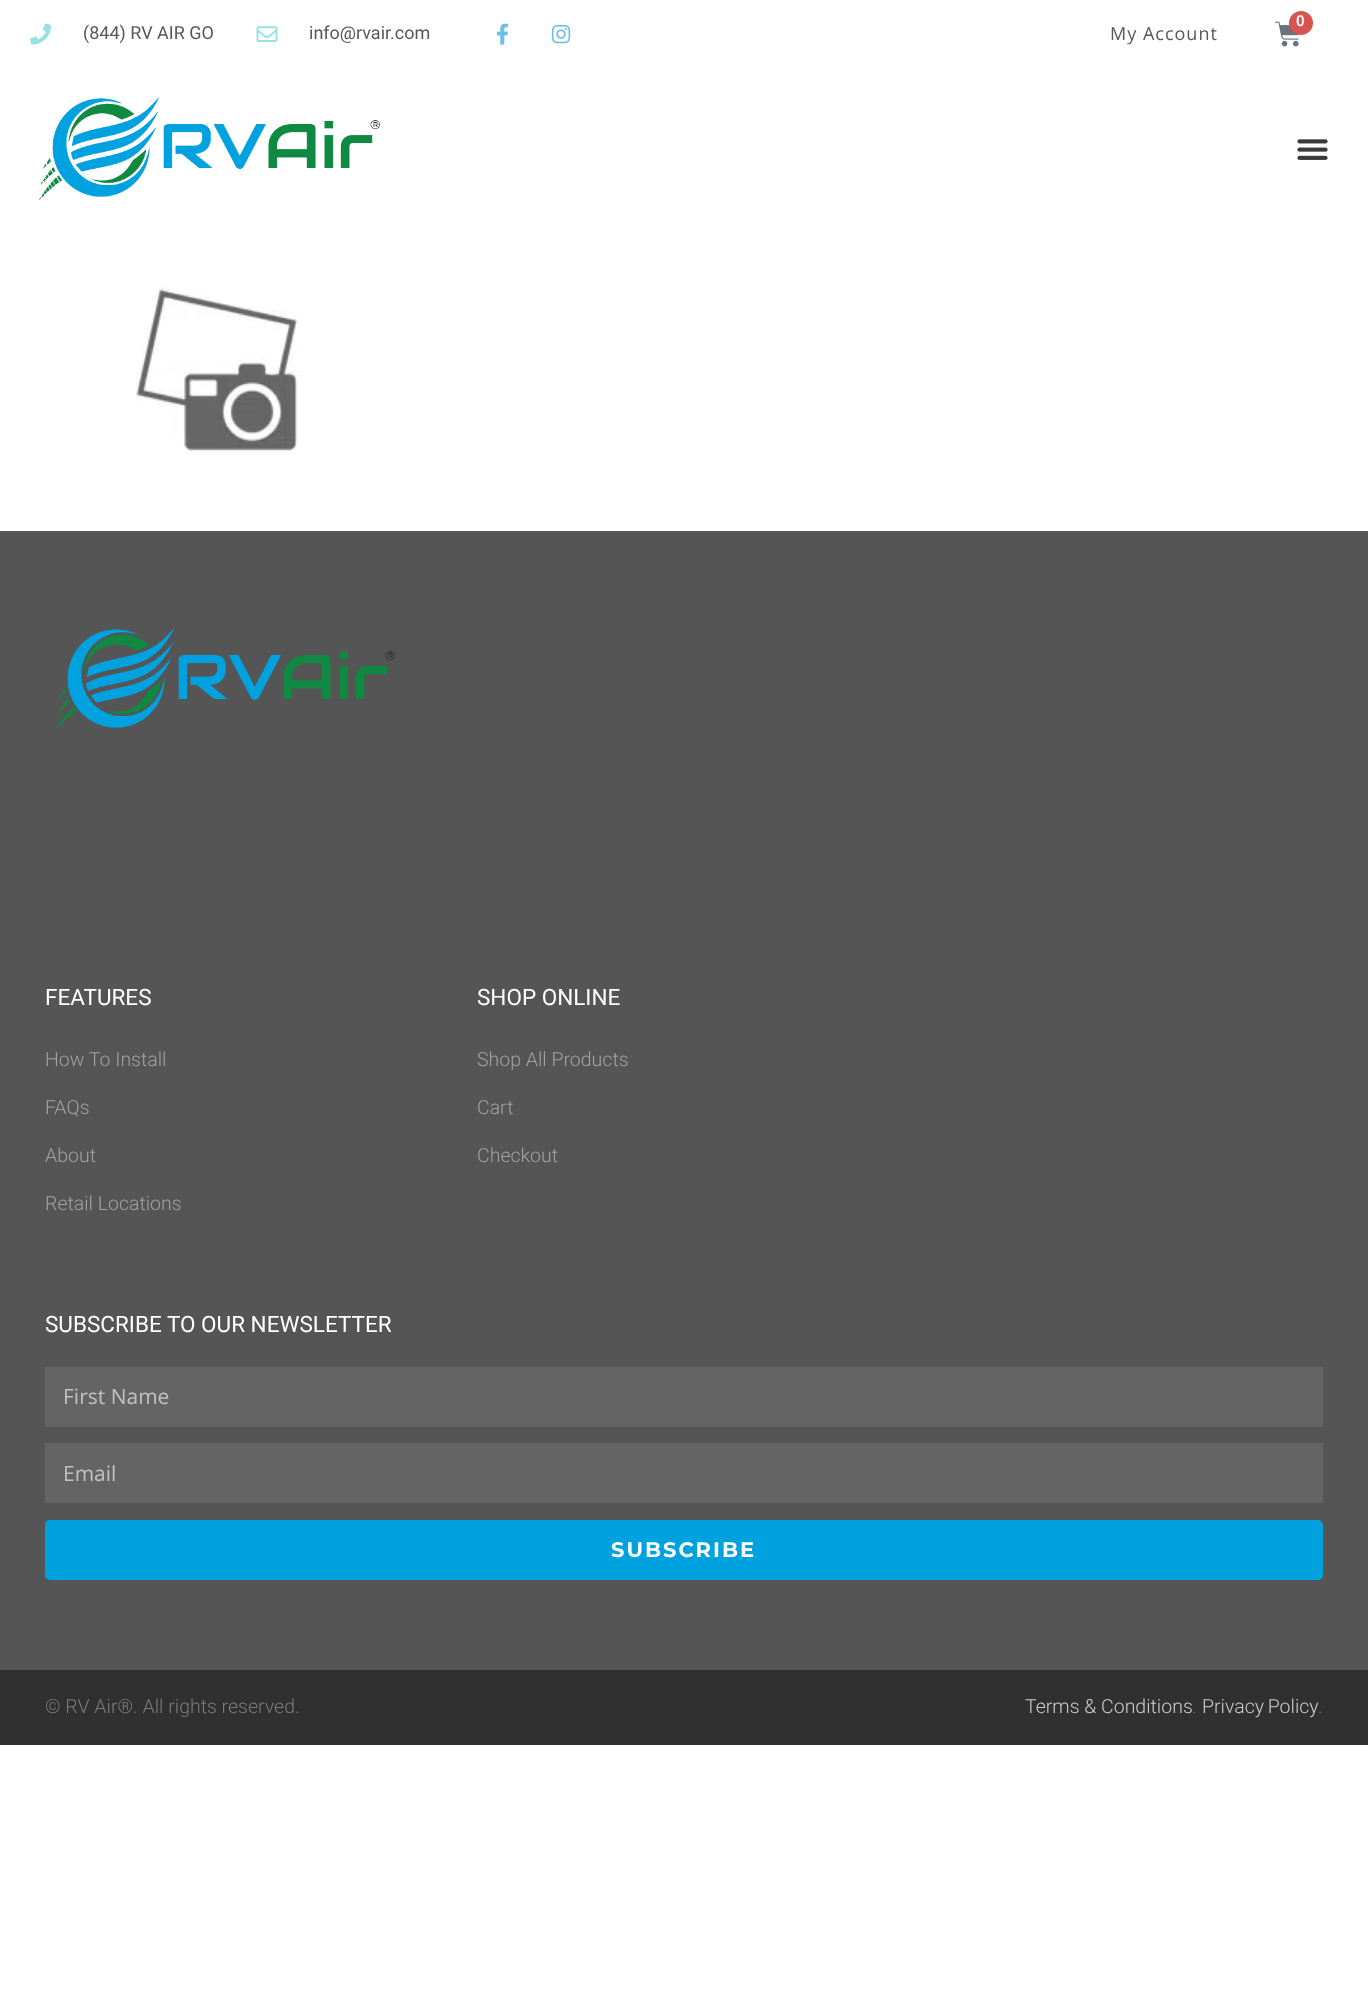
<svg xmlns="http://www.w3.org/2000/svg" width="1368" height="1998">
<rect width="100%" height="100%" fill="#fff"/>
<image x="30" y="23" width="21" height="22" href="media/1.png"/>
<text x="83" y="39" style="font-family:Roboto;font-size:18px;fill:#54595f">(844) RV AIR GO</text>
<image x="256" y="26" width="22" height="16" href="media/2.png"/>
<text x="309" y="39" style="font-family:Roboto;font-size:18px;fill:#54595f">info@rvair.com</text>
<image x="496" y="23" width="13" height="22" href="media/3.png"/>
<image x="551" y="24" width="20" height="20" href="media/4.png"/>
<image x="1275" y="21" width="25" height="26" href="media/5.png"/>
<circle cx="1301" cy="23" r="12" fill="#d9534f"/>
<text x="1296" y="26" style="font-family:Roboto;font-size:15px;font-weight:600;fill:#fff">0</text>
<text x="1110" y="40" style="font-family:Open Sans;font-size:18px;letter-spacing:1px;fill:#54595f">My Account</text>
<image x="39" y="97" width="341" height="104" href="media/6.png"/>
<image x="1297" y="139" width="31" height="21" href="media/7.png"/>
<image x="136" y="287" width="168" height="168" href="media/8.png"/>
<rect y="531" width="1368" height="1139" fill="#565555"/>
<image x="54" y="628" width="341" height="104" href="media/9.png"/>
<text x="45" y="1005" style="font-family:Roboto;font-size:22.5px;fill:#fff">FEATURES</text>
<text x="45" y="1066" style="font-family:Roboto;font-size:19.5px;font-weight:300;fill:#a2a2a2">How To Install</text>
<text x="45" y="1114" style="font-family:Roboto;font-size:19.5px;font-weight:300;fill:#a2a2a2">FAQs</text>
<text x="45" y="1162" style="font-family:Roboto;font-size:19.5px;font-weight:300;fill:#a2a2a2">About</text>
<text x="45" y="1210" style="font-family:Roboto;font-size:19.5px;font-weight:300;fill:#a2a2a2">Retail Locations</text>
<text x="477" y="1005" style="font-family:Roboto;font-size:22.5px;fill:#fff">SHOP ONLINE</text>
<text x="477" y="1066" style="font-family:Roboto;font-size:19.5px;font-weight:300;fill:#a2a2a2">Shop All Products</text>
<text x="477" y="1114" style="font-family:Roboto;font-size:19.5px;font-weight:300;fill:#a2a2a2">Cart</text>
<text x="477" y="1162" style="font-family:Roboto;font-size:19.5px;font-weight:300;fill:#a2a2a2">Checkout</text>
<text x="45" y="1332" style="font-family:Roboto;font-size:22.5px;fill:#fff">SUBSCRIBE TO OUR NEWSLETTER</text>
<rect x="45" y="1367" width="1278" height="60" fill="#656464"/>
<text x="63" y="1404" style="font-family:Open Sans;font-size:21px;fill:#c1c1c1">First Name</text>
<rect x="45" y="1443" width="1278" height="60" fill="#656464"/>
<text x="63" y="1481" style="font-family:Open Sans;font-size:21px;fill:#c1c1c1">Email</text>
<rect x="45" y="1520" width="1278" height="60" rx="5" fill="#00a1df"/>
<text x="611" y="1557" style="font-family:Montserrat;font-size:21px;font-weight:bold;letter-spacing:2px;fill:#fff">SUBSCRIBE</text>
<rect y="1670" width="1368" height="75" fill="#303030"/>
<text x="45" y="1713" style="font-family:Roboto;font-size:19.5px;font-weight:300;fill:#7c7c7c">© RV Air®. All rights reserved.</text>
<text x="1025" y="1713" style="font-family:Roboto;font-size:19.5px;font-weight:300;fill:#ccc">Terms &amp; Conditions</text>
<text x="1192" y="1713" style="font-family:Roboto;font-size:19.5px;font-weight:300;fill:#7c7c7c">.</text>
<text x="1202" y="1713" word-spacing="-1" style="font-family:Roboto;font-size:19.5px;font-weight:300;fill:#ccc">Privacy Policy</text>
<text x="1318" y="1713" style="font-family:Roboto;font-size:19.5px;font-weight:300;fill:#7c7c7c">.</text>
</svg>
